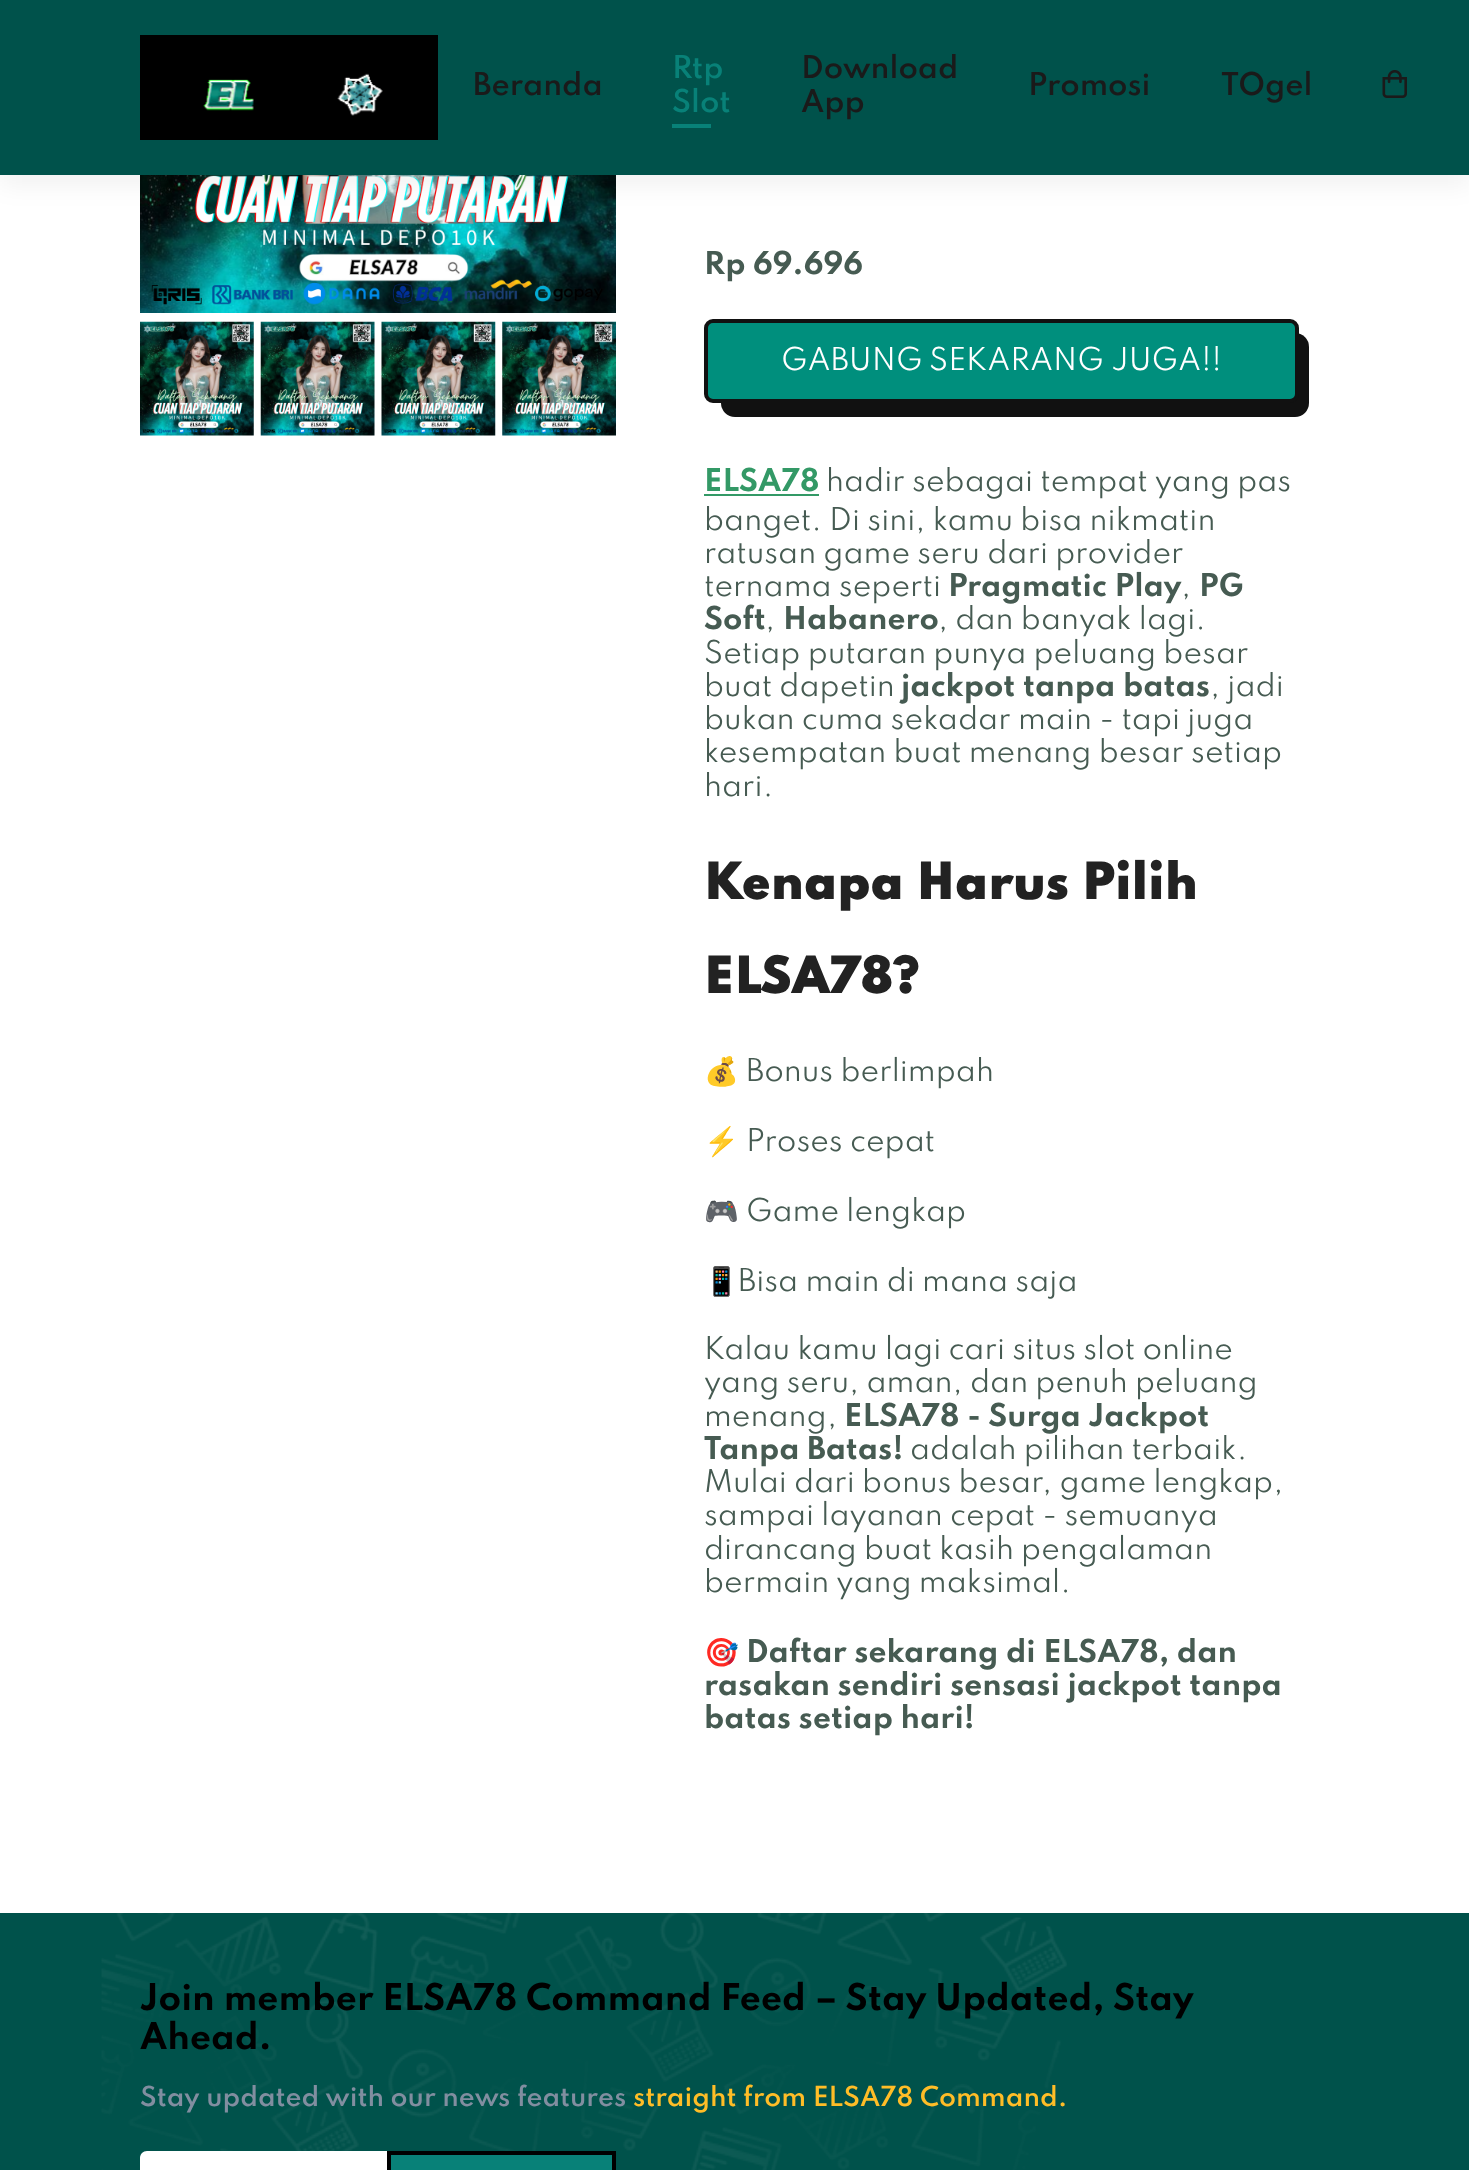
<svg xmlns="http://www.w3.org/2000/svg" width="1469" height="2170">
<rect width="100%" height="100%" fill="#fff"/>
<image x="140" y="175" width="476" height="138" href="media/3.png"/>
<rect y="9" width="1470" height="175" fill="#0000000f" filter="blur(13px)"/>
<rect width="1469" height="175" fill="#00524b"/>
<rect x="140" y="35" width="298" height="105" fill="#000"/>
<image x="203" y="73" width="180" height="43" href="media/1.png"/>
<text x="473" y="95" style="font-family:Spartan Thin;font-size:28px;font-weight:600;fill:#1a1a1a">Beranda</text>
<text x="672" y="78" style="font-family:Spartan Thin;font-size:28px;font-weight:600;fill:#088178">Rtp</text>
<text x="672" y="112" style="font-family:Spartan Thin;font-size:28px;font-weight:600;fill:#088178">Slot</text>
<rect x="672" y="124" width="39" height="4" fill="#088178"/>
<text x="801" y="78" style="font-family:Spartan Thin;font-size:28px;font-weight:600;fill:#1a1a1a">Download</text>
<text x="801" y="112" style="font-family:Spartan Thin;font-size:28px;font-weight:600;fill:#1a1a1a">App</text>
<text x="1028" y="95" style="font-family:Spartan Thin;font-size:28px;font-weight:600;fill:#1a1a1a">Promosi</text>
<text x="1221" y="95" style="font-family:Spartan Thin;font-size:28px;font-weight:600;fill:#1a1a1a">TOgel</text>
<image x="1382" y="70" width="25" height="28" href="media/2.png"/>
<image x="140" y="321" width="114" height="115" href="media/4.png"/>
<image x="260" y="321" width="115" height="115" href="media/5.png"/>
<image x="381" y="321" width="115" height="115" href="media/6.png"/>
<image x="502" y="321" width="114" height="115" href="media/7.png"/>
<text x="704" y="274" style="font-family:Spartan Thin;font-size:28px;font-weight:bold;fill:#465b52">Rp 69.696</text>
<rect x="721" y="333" width="588" height="84" rx="14" fill="#111"/>
<rect x="706" y="321" width="591" height="80" rx="7" fill="#008f7d" stroke="#111" stroke-width="4"/>
<text x="781" y="370" style="font-family:Spartan Thin;font-size:28px;fill:#fff">GABUNG SEKARANG JUGA!!</text>
<text x="704" y="491" style="font-family:Spartan Thin;font-size:28px;font-weight:bold;fill:#396">ELSA78</text>
<rect x="704" y="494" width="115" height="2" fill="#396"/>
<text x="826" y="491" style="font-family:Spartan Thin;font-size:28px;fill:#465b52">hadir sebagai tempat yang pas</text>
<text x="704" y="530" style="font-family:Spartan Thin;font-size:28px;fill:#465b52">banget. Di sini, kamu bisa nikmatin</text>
<text x="704" y="563" style="font-family:Spartan Thin;font-size:28px;fill:#465b52">ratusan game seru dari provider</text>
<text x="704" y="596" style="font-family:Spartan Thin;font-size:28px;fill:#465b52">ternama seperti</text>
<text x="948" y="596" style="font-family:Spartan Thin;font-size:28px;font-weight:bold;fill:#465b52">Pragmatic Play</text>
<text x="1181" y="596" style="font-family:Spartan Thin;font-size:28px;fill:#465b52">,</text>
<text x="1199" y="596" style="font-family:Spartan Thin;font-size:28px;font-weight:bold;fill:#465b52">PG</text>
<text x="704" y="629" style="font-family:Spartan Thin;font-size:28px;font-weight:bold;fill:#465b52">Soft</text>
<text x="765" y="629" style="font-family:Spartan Thin;font-size:28px;fill:#465b52">,</text>
<text x="783" y="629" style="font-family:Spartan Thin;font-size:28px;font-weight:bold;fill:#465b52">Habanero</text>
<text x="938" y="629" style="font-family:Spartan Thin;font-size:28px;fill:#465b52">, dan banyak lagi.</text>
<text x="704" y="663" style="font-family:Spartan Thin;font-size:28px;fill:#465b52">Setiap putaran punya peluang besar</text>
<text x="704" y="696" style="font-family:Spartan Thin;font-size:28px;fill:#465b52">buat dapetin</text>
<text x="901" y="696" style="font-family:Spartan Thin;font-size:28px;font-weight:bold;fill:#465b52">jackpot tanpa batas</text>
<text x="1210" y="696" style="font-family:Spartan Thin;font-size:28px;fill:#465b52">, jadi</text>
<text x="704" y="729" style="font-family:Spartan Thin;font-size:28px;fill:#465b52">bukan cuma sekadar main - tapi juga</text>
<text x="704" y="762" style="font-family:Spartan Thin;font-size:28px;fill:#465b52">kesempatan buat menang besar setiap</text>
<text x="704" y="796" style="font-family:Spartan Thin;font-size:28px;fill:#465b52">hari.</text>
<text x="704" y="899" style="font-family:Spartan Thin;font-size:45.5px;font-weight:900;fill:#222">Kenapa Harus Pilih</text>
<text x="704" y="993" style="font-family:Spartan Thin;font-size:45.5px;font-weight:900;fill:#222">ELSA78?</text>
<text x="704" y="1081" style="font-family:Noto Color Emoji;font-size:28px;font-weight:bold;fill:#465b52">💰</text>
<text x="746" y="1081" style="font-family:Spartan Thin;font-size:28px;fill:#465b52">Bonus berlimpah</text>
<text x="704" y="1151" style="font-family:Noto Color Emoji;font-size:28px;fill:#465b52">⚡</text>
<text x="746" y="1151" style="font-family:Spartan Thin;font-size:28px;fill:#465b52">Proses cepat</text>
<text x="704" y="1221" style="font-family:Noto Color Emoji;font-size:28px;fill:#465b52">🎮</text>
<text x="746" y="1221" style="font-family:Spartan Thin;font-size:28px;fill:#465b52">Game lengkap</text>
<text x="704" y="1291" style="font-family:Noto Color Emoji;font-size:28px;fill:#465b52">📱</text>
<text x="738" y="1291" style="font-family:Spartan Thin;font-size:28px;fill:#465b52">Bisa main di mana saja</text>
<text x="704" y="1359" style="font-family:Spartan Thin;font-size:28px;fill:#465b52">Kalau kamu lagi cari situs slot online</text>
<text x="704" y="1392" style="font-family:Spartan Thin;font-size:28px;fill:#465b52">yang seru, aman, dan penuh peluang</text>
<text x="704" y="1426" style="font-family:Spartan Thin;font-size:28px;fill:#465b52">menang,</text>
<text x="844" y="1426" style="font-family:Spartan Thin;font-size:28px;font-weight:bold;fill:#465b52">ELSA78 - Surga Jackpot</text>
<text x="704" y="1459" style="font-family:Spartan Thin;font-size:28px;font-weight:bold;fill:#465b52">Tanpa Batas!</text>
<text x="910" y="1459" style="font-family:Spartan Thin;font-size:28px;fill:#465b52">adalah pilihan terbaik.</text>
<text x="704" y="1492" style="font-family:Spartan Thin;font-size:28px;fill:#465b52">Mulai dari bonus besar, game lengkap,</text>
<text x="704" y="1525" style="font-family:Spartan Thin;font-size:28px;fill:#465b52">sampai layanan cepat - semuanya</text>
<text x="704" y="1559" style="font-family:Spartan Thin;font-size:28px;fill:#465b52">dirancang buat kasih pengalaman</text>
<text x="704" y="1592" style="font-family:Spartan Thin;font-size:28px;fill:#465b52">bermain yang maksimal.</text>
<text x="704" y="1662" style="font-family:Noto Color Emoji;font-size:28px;fill:#465b52">🎯</text>
<text x="746" y="1662" style="font-family:Spartan Thin;font-size:28px;font-weight:bold;fill:#465b52">Daftar sekarang di ELSA78, dan</text>
<text x="704" y="1695" style="font-family:Spartan Thin;font-size:28px;font-weight:bold;fill:#465b52">rasakan sendiri sensasi jackpot tanpa</text>
<text x="704" y="1728" style="font-family:Spartan Thin;font-size:28px;font-weight:bold;fill:#465b52">batas setiap hari!</text>
<rect y="1913" width="1469" height="257" fill="#00524b"/>
<image x="101" y="1913" width="966" height="257" href="media/8.png"/>
<text x="140" y="2010" style="font-family:Spartan Thin;font-size:32.75px;font-weight:bold;fill:#000">Join member ELSA78 Command Feed – Stay Updated, Stay</text>
<text x="140" y="2049" style="font-family:Spartan Thin;font-size:32.75px;font-weight:bold;fill:#000">Ahead.</text>
<text x="140" y="2106" style="font-family:Spartan Thin;font-size:24.5px;font-weight:600;fill:#818ea0">Stay updated with our news features</text>
<text x="633" y="2106" style="font-family:Spartan Thin;font-size:24.5px;font-weight:600;fill:#ffbd27">straight from ELSA78 Command.</text>
<path d="M147 2151h240v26h-240c-4 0-7-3-7-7v-12c0-4 3-7 7-7z" fill="#fff"/>
<rect x="389" y="2153" width="225" height="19" fill="#088178" stroke="#000" stroke-width="4"/>
</svg>
